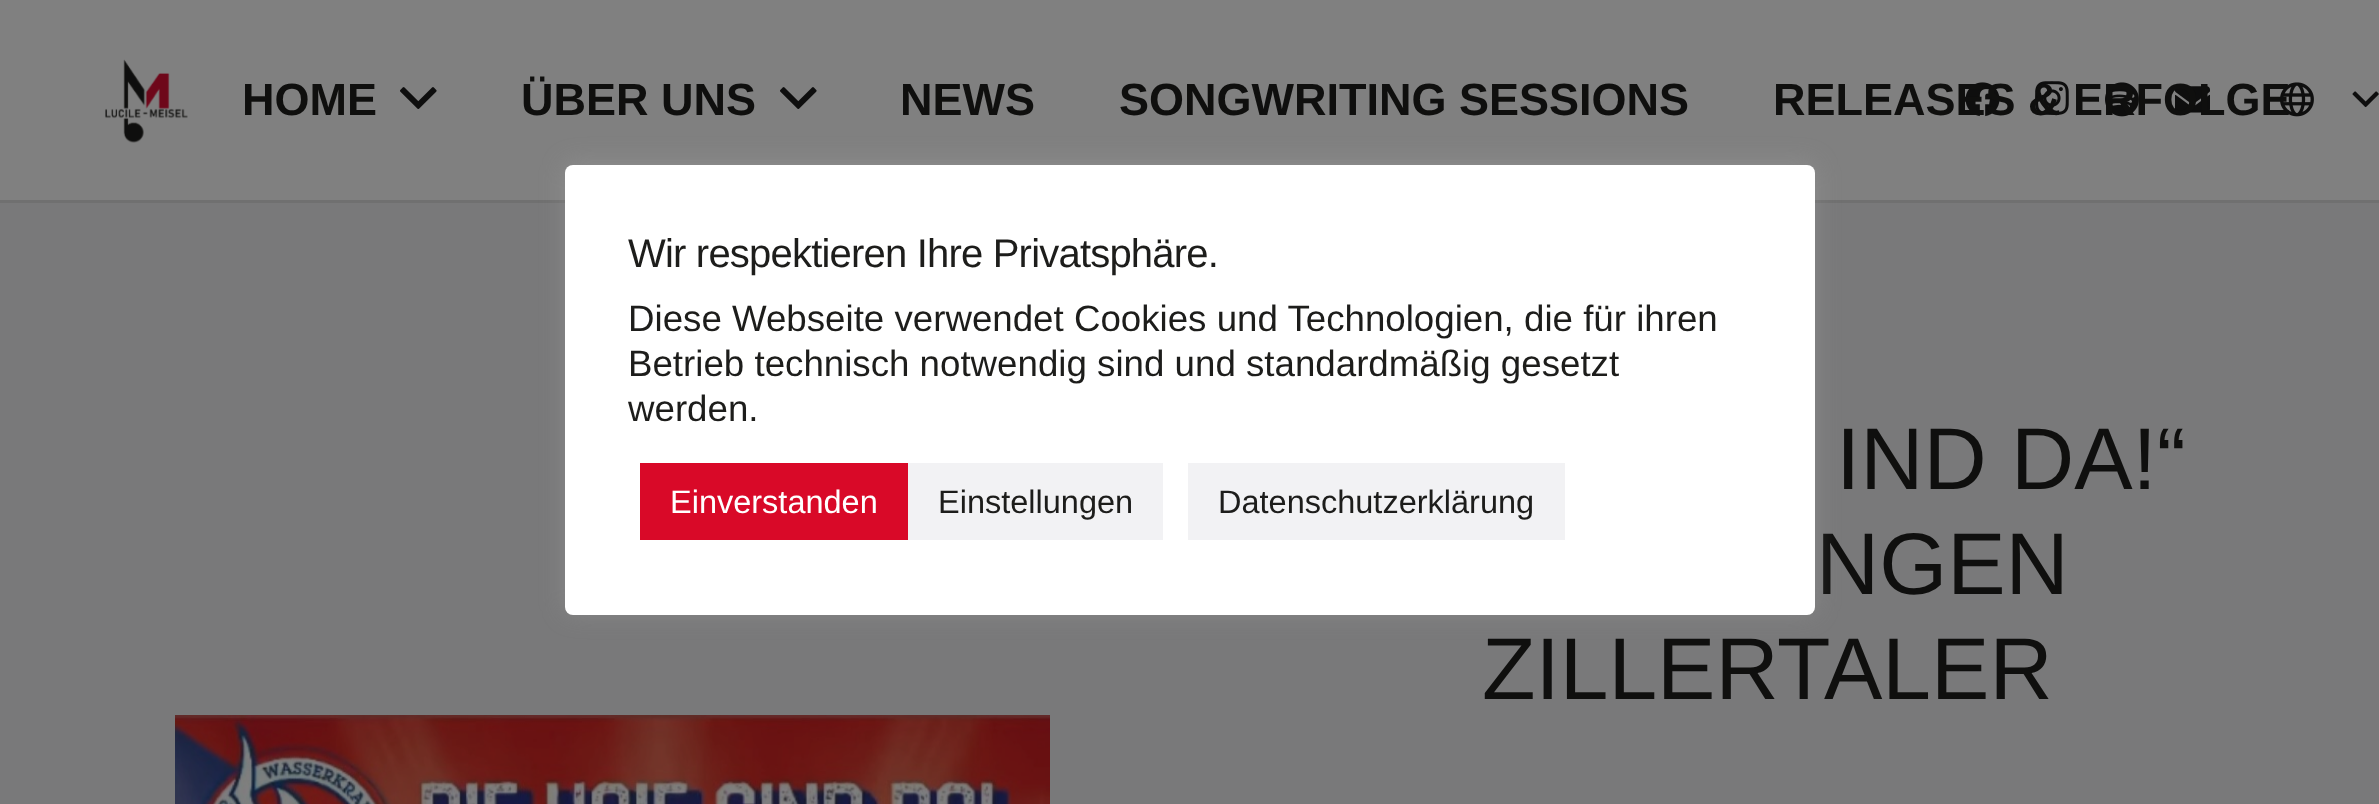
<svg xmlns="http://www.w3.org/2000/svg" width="2379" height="804">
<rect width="100%" height="100%" fill="#79797a"/>
<rect y="200" width="2379" height="3" fill="#707070"/>
<rect width="2379" height="200" fill="#808080"/>
<image x="105" y="59" width="83" height="84" href="media/1.png"/>
<text x="242" y="115" style="font-family:Liberation Sans;font-size:45px;font-weight:bold;fill:#0f0f0e">HOME</text>
<image x="400" y="87" width="37" height="22" href="media/2.png"/>
<text x="521" y="115" style="font-family:Liberation Sans;font-size:45px;font-weight:bold;fill:#0f0f0e">ÜBER UNS</text>
<image x="780" y="87" width="37" height="22" href="media/2.png"/>
<text x="900" y="115" style="font-family:Liberation Sans;font-size:45px;font-weight:bold;fill:#0f0f0e">NEWS</text>
<text x="1119" y="115" style="font-family:Liberation Sans;font-size:45px;font-weight:bold;fill:#0f0f0e">SONGWRITING SESSIONS</text>
<image x="1965" y="82" width="35" height="35" href="media/3.png"/>
<image x="2035" y="81" width="34" height="34" href="media/4.png"/>
<image x="2105" y="82" width="34" height="35" href="media/5.png"/>
<image x="2175" y="86" width="35" height="27" href="media/6.png"/>
<text x="1773" y="115" style="font-family:Liberation Sans;font-size:45px;font-weight:bold;fill:#0f0f0e">RELEASES &amp; ERFOLGE</text>
<image x="2280" y="82" width="34" height="35" href="media/7.png"/>
<image x="2352" y="91" width="27" height="17" href="media/8.png"/>
<text x="1836" y="489" style="font-family:Liberation Sans;font-size:87.5px;fill:#0f0f0e">IND DA!“</text>
<text x="1816" y="594" style="font-family:Liberation Sans;font-size:87.5px;fill:#0f0f0e">NGEN</text>
<text x="1482" y="699" style="font-family:Liberation Sans;font-size:87.5px;fill:#0f0f0e">ZILLERTALER</text>
<image x="175" y="715" width="875" height="89" href="media/9.png"/>
<rect x="565" y="163" width="1250" height="450" rx="8" fill="#acabab4d" filter="blur(12.5px)"/>
<rect x="565" y="165" width="1250" height="450" rx="8" fill="#fff"/>
<text x="628" y="267" style="font-family:Liberation Sans;font-size:40px;letter-spacing:-0.8px;fill:#1d1d1b">Wir respektieren Ihre Privatsphäre.</text>
<text x="628" y="331" style="font-family:Liberation Sans;font-size:36.7px;fill:#1d1d1b">Diese Webseite verwendet Cookies und Technologien, die für ihren</text>
<text x="628" y="376" style="font-family:Liberation Sans;font-size:36.7px;fill:#1d1d1b">Betrieb technisch notwendig sind und standardmäßig gesetzt</text>
<text x="628" y="421" style="font-family:Liberation Sans;font-size:36.7px;fill:#1d1d1b">werden.</text>
<rect x="640" y="463" width="268" height="77" fill="#d90928"/>
<text x="670" y="513" style="font-family:Liberation Sans;font-size:32.5px;fill:#fff">Einverstanden</text>
<rect x="908" y="463" width="255" height="77" fill="#f2f2f4"/>
<text x="938" y="513" style="font-family:Liberation Sans;font-size:32.5px;fill:#1d1d1b">Einstellungen</text>
<rect x="1188" y="463" width="377" height="77" fill="#f2f2f4"/>
<text x="1218" y="513" style="font-family:Liberation Sans;font-size:32.5px;fill:#1d1d1b">Datenschutzerklärung</text>
</svg>
